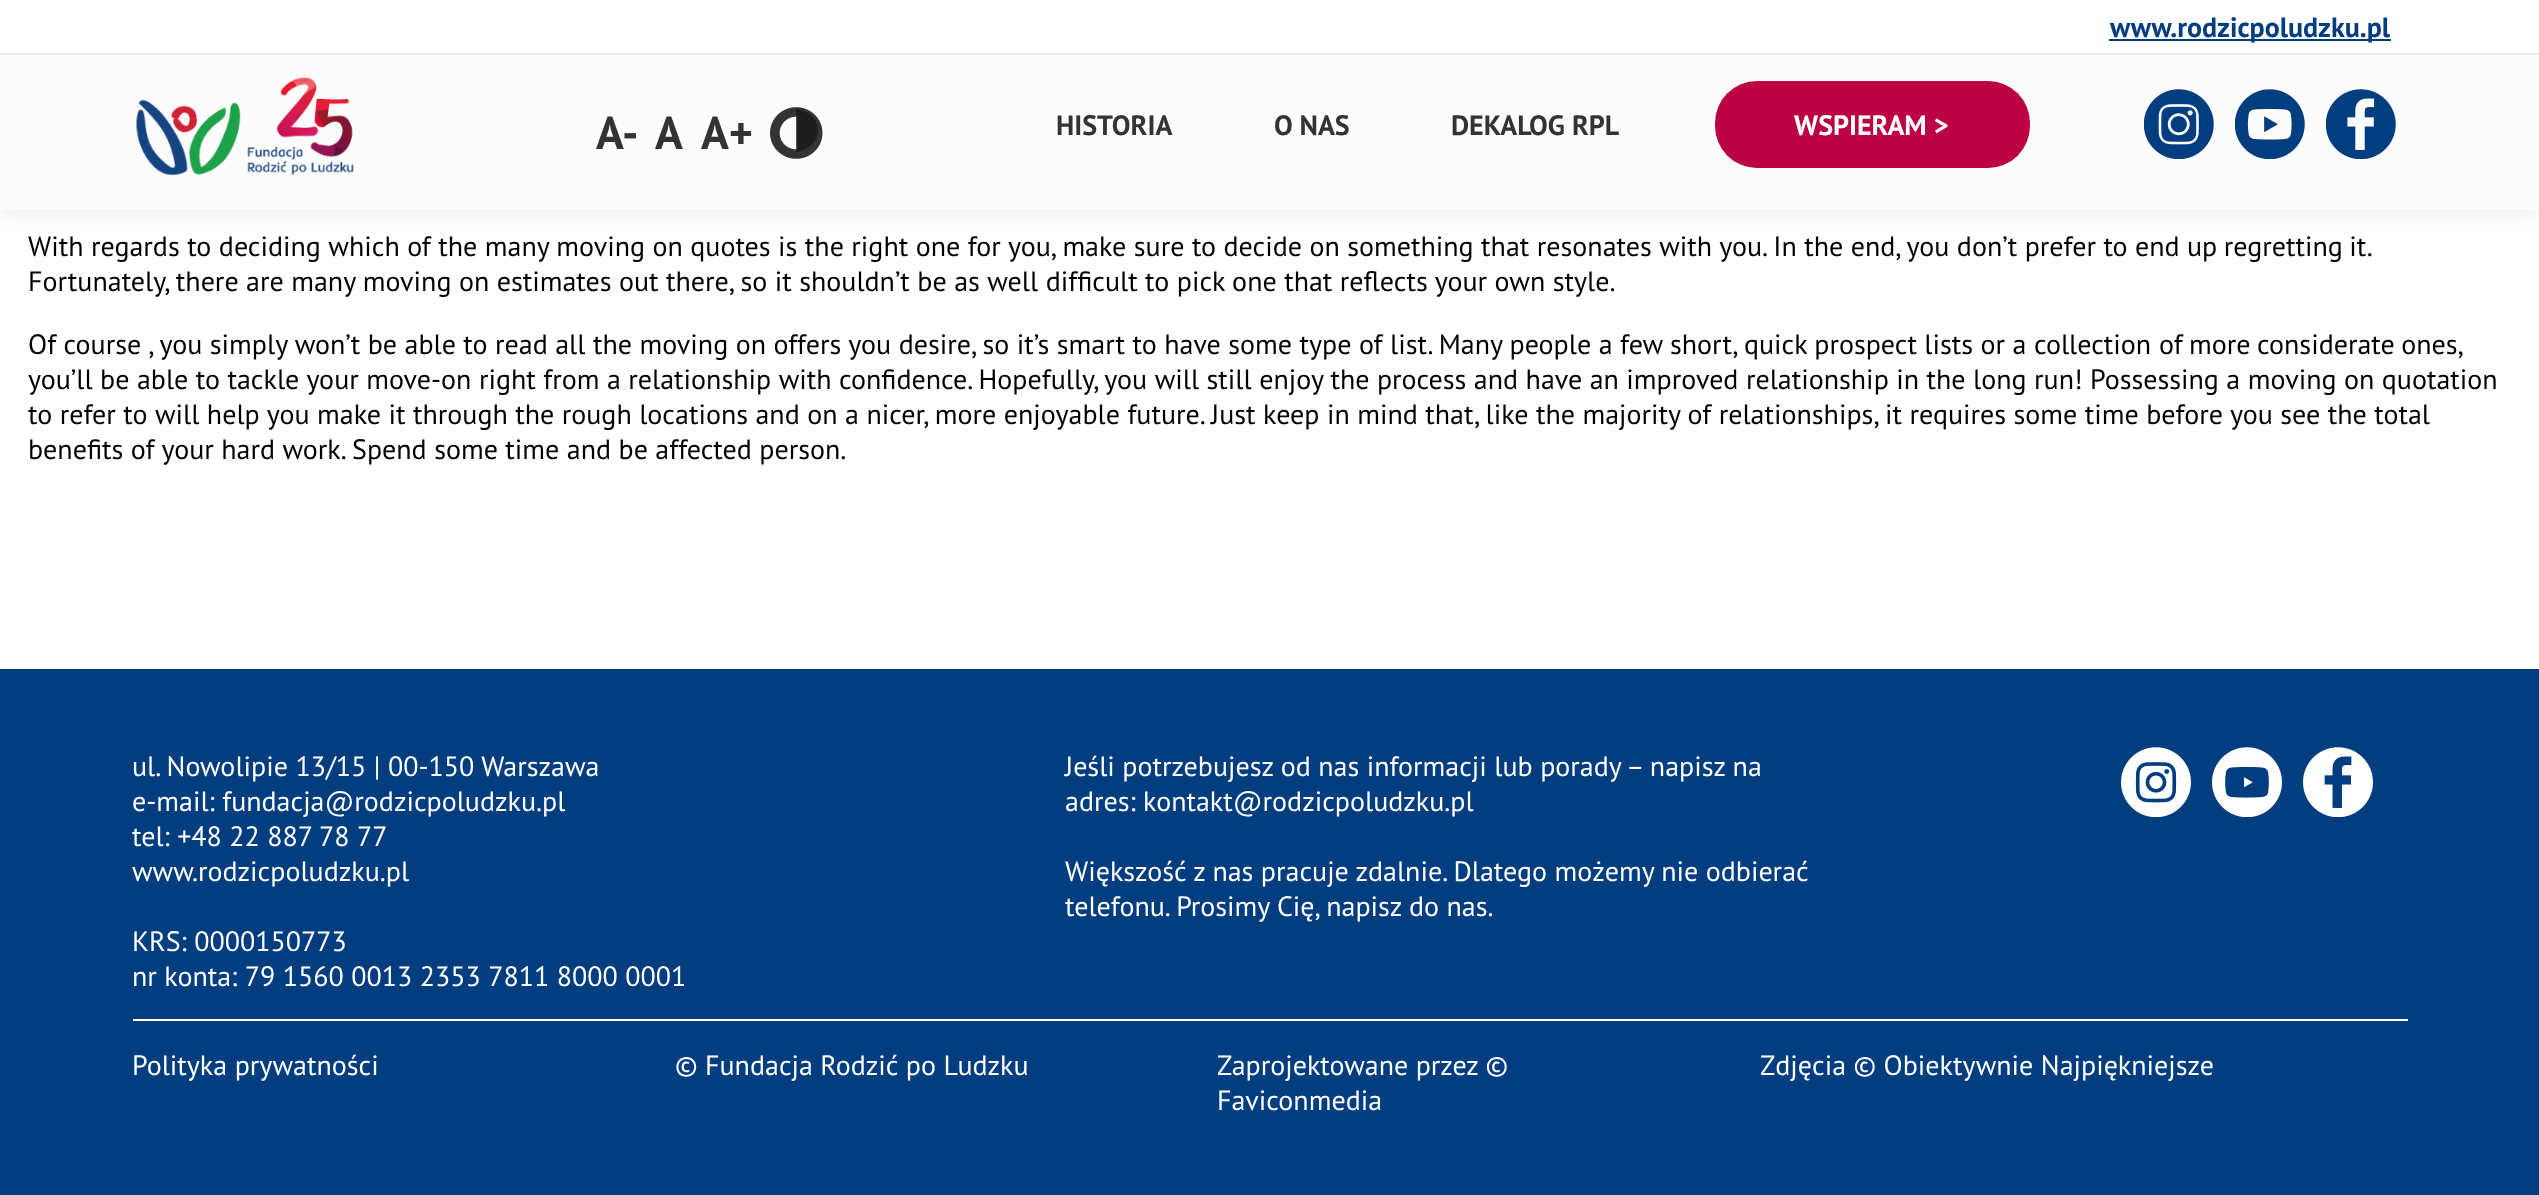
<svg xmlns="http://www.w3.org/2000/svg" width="2539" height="1195">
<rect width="100%" height="100%" fill="#fff"/>
<rect y="5" width="2539" height="210" fill="#0000000f" filter="blur(9px)"/>
<rect y="54" width="2539" height="156" fill="#fcfcfc"/>
<rect width="2539" height="54" fill="#fff"/>
<rect y="53" width="2539" height="2" fill="#00000014"/>
<rect x="2109" y="39" width="282" height="2" fill="#013d7f"/>
<text x="2110" y="37" style="font-family:PT Sans;font-size:28px;font-weight:bold;fill:#013d7f">www.rodzicpoludzku.pl</text>
<image x="136" y="77" width="218" height="99" href="media/1.png"/>
<text x="596" y="149" style="font-family:PT Sans;font-size:46px;font-weight:bold;fill:#333">A-</text>
<text x="655" y="149" style="font-family:PT Sans;font-size:46px;font-weight:bold;fill:#333">A</text>
<text x="701" y="149" style="font-family:PT Sans;font-size:46px;font-weight:bold;fill:#333">A+</text>
<image x="770" y="107" width="53" height="52" href="media/2.png"/>
<text x="1056" y="135" style="font-family:PT Sans;font-size:28px;font-weight:bold;fill:#333">HISTORIA</text>
<text x="1274" y="135" style="font-family:PT Sans;font-size:28px;font-weight:bold;fill:#333">O NAS</text>
<text x="1451" y="135" style="font-family:PT Sans;font-size:28px;font-weight:bold;fill:#333">DEKALOG RPL</text>
<rect x="1715" y="81" width="315" height="87" rx="42" fill="#bd0244"/>
<text x="1794" y="135" style="font-family:PT Sans;font-size:28px;font-weight:bold;fill:#fff">WSPIERAM &gt;</text>
<image x="2144" y="89" width="70" height="70" href="media/3.png"/>
<image x="2235" y="89" width="70" height="70" href="media/4.png"/>
<image x="2326" y="89" width="70" height="70" href="media/5.png"/>
<text x="28" y="256" style="font-family:PT Sans;font-size:28px;fill:#000">With regards to deciding which of the many moving on quotes is the right one for you, make sure to decide on something that resonates with you. In the end, you don’t prefer to end</text>
<text x="2187" y="256" word-spacing="-1" style="font-family:PT Sans;font-size:28px;fill:#000">up regretting it.</text>
<text x="28" y="291" style="font-family:PT Sans;font-size:28px;fill:#000">Fortunately, there are many moving on estimates out there, so it shouldn’t be as well difficult to pick one that reflects your own style.</text>
<text x="28" y="354" style="font-family:PT Sans;font-size:28px;fill:#000">Of course , you simply won’t be able to read all the moving on offers you desire, so it’s smart to have some type of list. Many people a few short, quick prospect lists or a collection</text>
<text x="2159" y="354" word-spacing="-1" style="font-family:PT Sans;font-size:28px;fill:#000">of more considerate ones,</text>
<text x="28" y="389" style="font-family:PT Sans;font-size:28px;fill:#000">you’ll be able to tackle your move-on right from a relationship with confidence. Hopefully, you will still enjoy the process and have an improved relationship in the long run! Possessing a moving on quotation</text>
<text x="28" y="424" style="font-family:PT Sans;font-size:28px;fill:#000">to refer to will help you make it through the rough locations and on a nicer, more enjoyable future. Just keep in mind that, like the majority of relationships, it requires some time before you see the total</text>
<text x="28" y="459" style="font-family:PT Sans;font-size:28px;fill:#000">benefits of your hard work. Spend some time and be affected person.</text>
<rect y="669" width="2539" height="526" fill="#013d7f"/>
<rect x="133" y="1019" width="2275" height="2" fill="#fff"/>
<text x="132" y="776" style="font-family:PT Sans;font-size:28px;fill:#fff">ul. Nowolipie 13/15 | 00-150 Warszawa</text>
<text x="132" y="811" style="font-family:PT Sans;font-size:28px;fill:#fff">e-mail: fundacja@rodzicpoludzku.pl</text>
<text x="132" y="846" style="font-family:PT Sans;font-size:28px;fill:#fff">tel: +48 22 887 78 77</text>
<text x="132" y="881" style="font-family:PT Sans;font-size:28px;fill:#fff">www.rodzicpoludzku.pl</text>
<text x="132" y="951" style="font-family:PT Sans;font-size:28px;fill:#fff">KRS: 0000150773</text>
<text x="132" y="986" style="font-family:PT Sans;font-size:28px;fill:#fff">nr konta: 79 1560 0013 2353 7811 8000 0001</text>
<text x="1065" y="776" style="font-family:PT Sans;font-size:28px;fill:#fff">Jeśli potrzebujesz od nas informacji lub porady – napisz na</text>
<text x="1065" y="811" style="font-family:PT Sans;font-size:28px;fill:#fff">adres: kontakt@rodzicpoludzku.pl</text>
<text x="1065" y="881" style="font-family:PT Sans;font-size:28px;fill:#fff">Większość z nas pracuje zdalnie. Dlatego możemy nie odbierać</text>
<text x="1065" y="916" style="font-family:PT Sans;font-size:28px;fill:#fff">telefonu. Prosimy Cię, napisz do nas.</text>
<image x="2121" y="747" width="70" height="70" href="media/6.png"/>
<image x="2212" y="747" width="70" height="70" href="media/7.png"/>
<image x="2303" y="747" width="70" height="70" href="media/8.png"/>
<text x="132" y="1075" style="font-family:PT Sans;font-size:28px;fill:#fff">Polityka prywatności</text>
<text x="675" y="1075" style="font-family:PT Sans;font-size:28px;fill:#fff">© Fundacja Rodzić po Ludzku</text>
<text x="1217" y="1075" style="font-family:PT Sans;font-size:28px;fill:#fff">Zaprojektowane przez ©</text>
<text x="1217" y="1110" style="font-family:PT Sans;font-size:28px;fill:#fff">Faviconmedia</text>
<text x="1760" y="1075" style="font-family:PT Sans;font-size:28px;fill:#fff">Zdjęcia © Obiektywnie Najpiękniejsze</text>
</svg>
